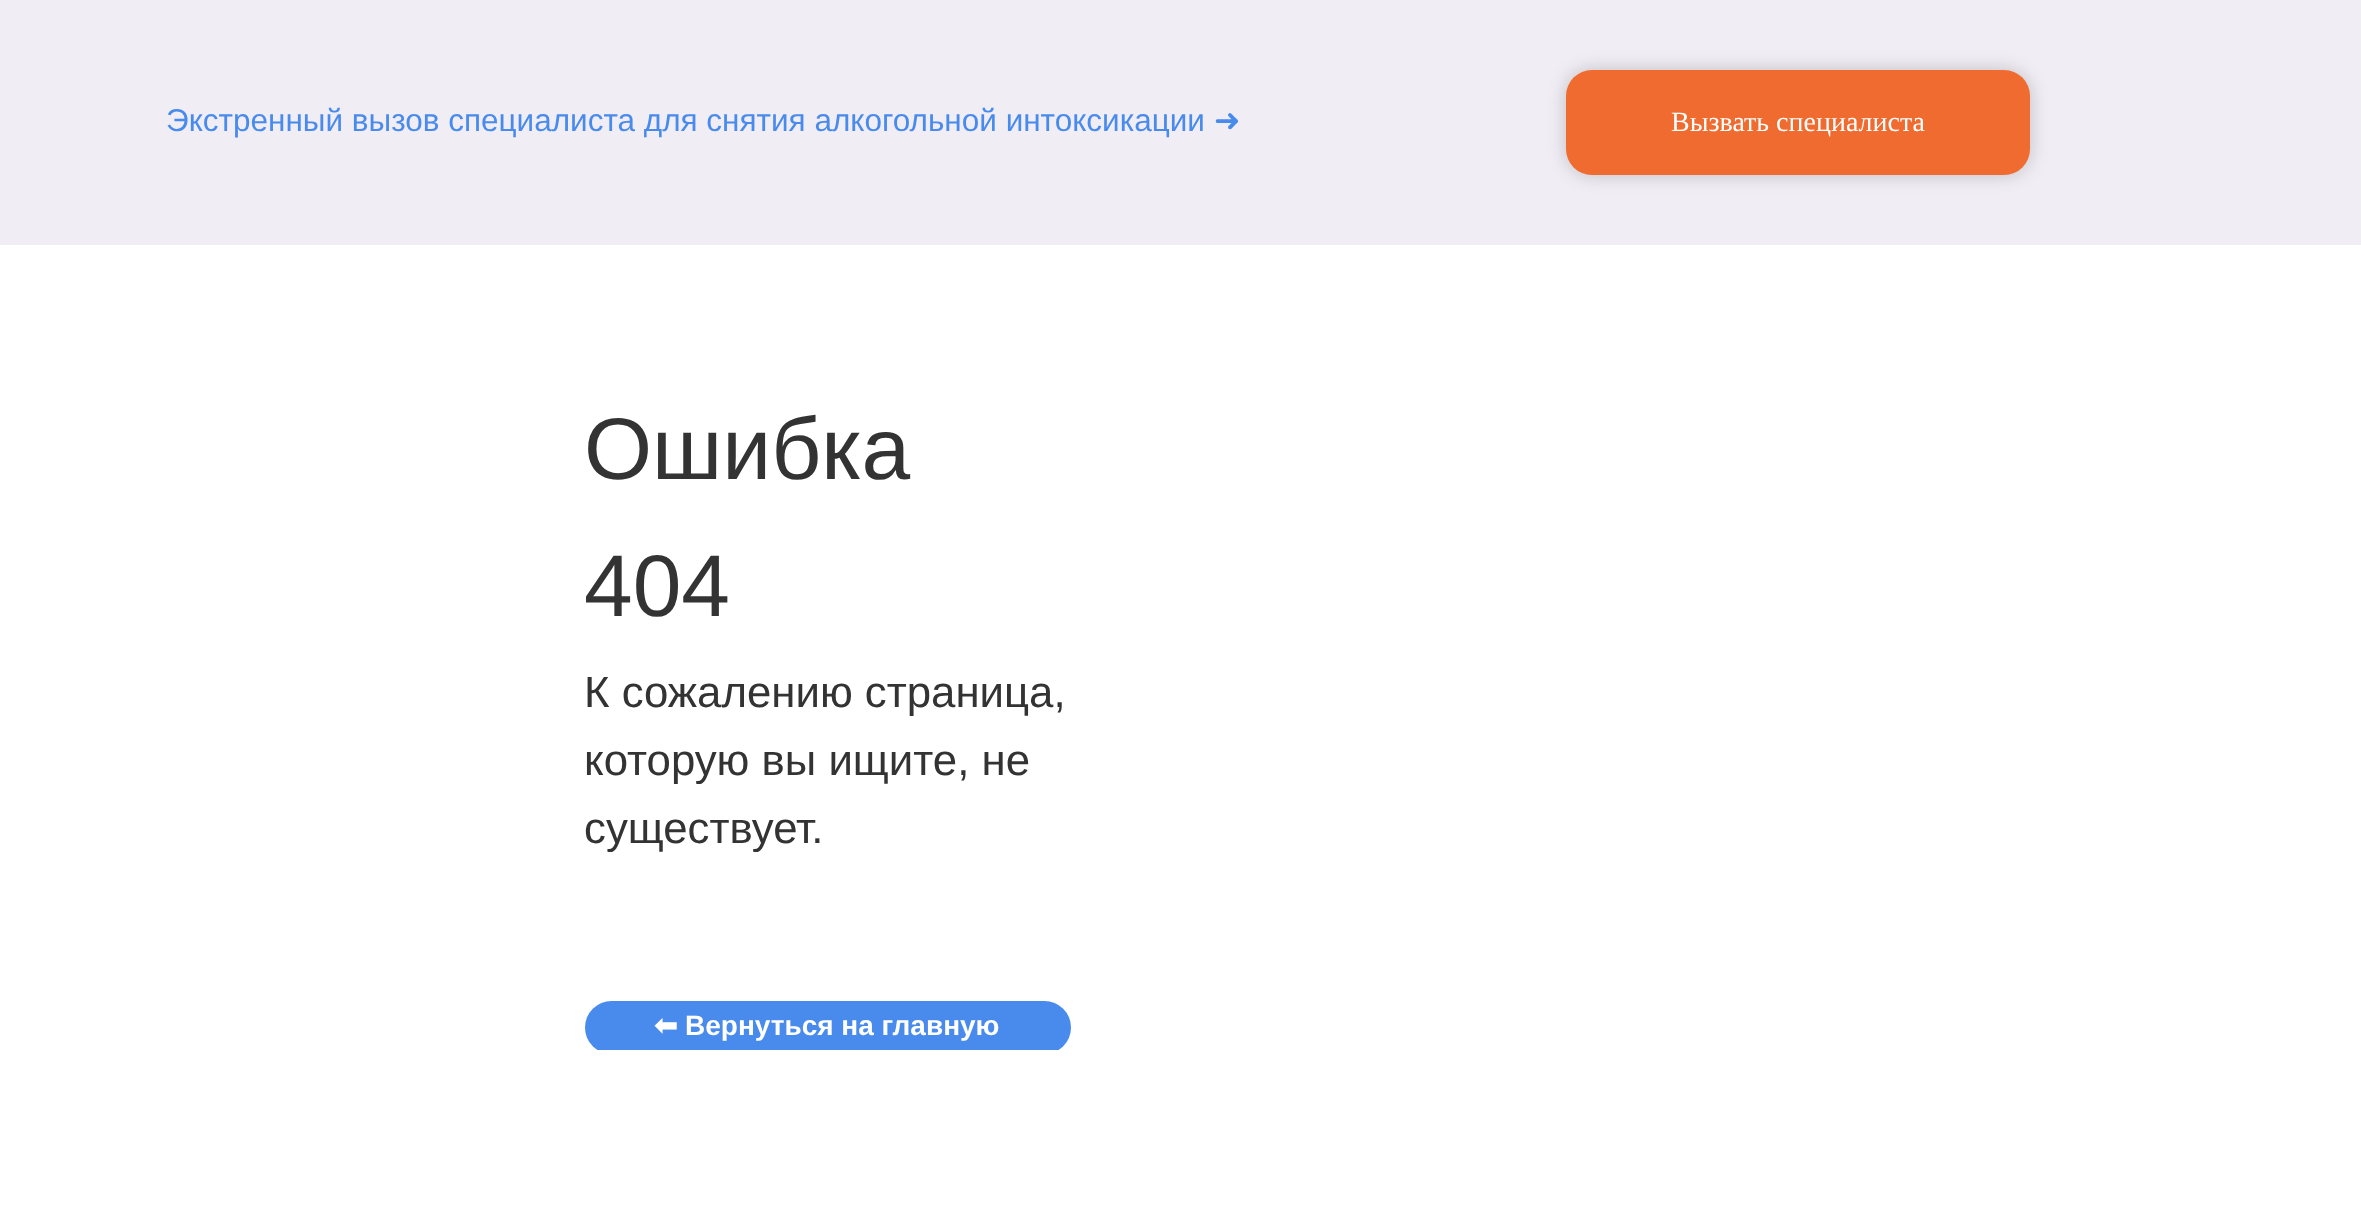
<svg xmlns="http://www.w3.org/2000/svg" width="2361" height="1211">
<defs>
<clipPath id="clip1"><rect y="245" width="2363" height="805"/></clipPath>
</defs>
<rect width="100%" height="100%" fill="#fff"/>
<rect width="2361" height="245" fill="#f0eef4"/>
<text x="166" y="131" style="font-family:Liberation Sans;font-size:31.5px;fill:#498bed">Экстренный вызов специалиста для снятия алкогольной интоксикации</text>
<text x="1214" y="131" style="font-family:DejaVu Sans;font-size:31.5px;fill:#498bed">➜</text>
<rect x="1566" y="70" width="464" height="105" rx="26" fill="#00000033" filter="blur(9px)"/>
<rect x="1566" y="70" width="464" height="105" rx="26" fill="#f06b2f"/>
<text x="1671" y="131" style="font-family:Liberation Serif;font-size:28px;fill:#fff">Вызвать специалиста</text>
<text x="584" y="479" style="font-family:Liberation Sans;font-size:87.5px;fill:#333">Ошибка</text>
<text x="584" y="616" style="font-family:Liberation Sans;font-size:87.5px;fill:#333">404</text>
<text x="584" y="707" style="font-family:Liberation Sans;font-size:43.75px;fill:#333">К сожалению страница,</text>
<text x="584" y="775" style="font-family:Liberation Sans;font-size:43.75px;fill:#333">которую вы ищите, не</text>
<text x="584" y="843" style="font-family:Liberation Sans;font-size:43.75px;fill:#333">существует.</text>
<g clip-path="url(#clip1)">
<rect x="585" y="1001" width="486" height="53" rx="26.5" fill="#498bed"/>
</g>
<text x="654" y="1035" style="font-family:DejaVu Sans;font-size:28px;font-weight:bold;fill:#fff">⬅</text>
<text x="685" y="1035" style="font-family:Liberation Sans;font-size:28px;font-weight:bold;fill:#fff">Вернуться на главную</text>
</svg>
